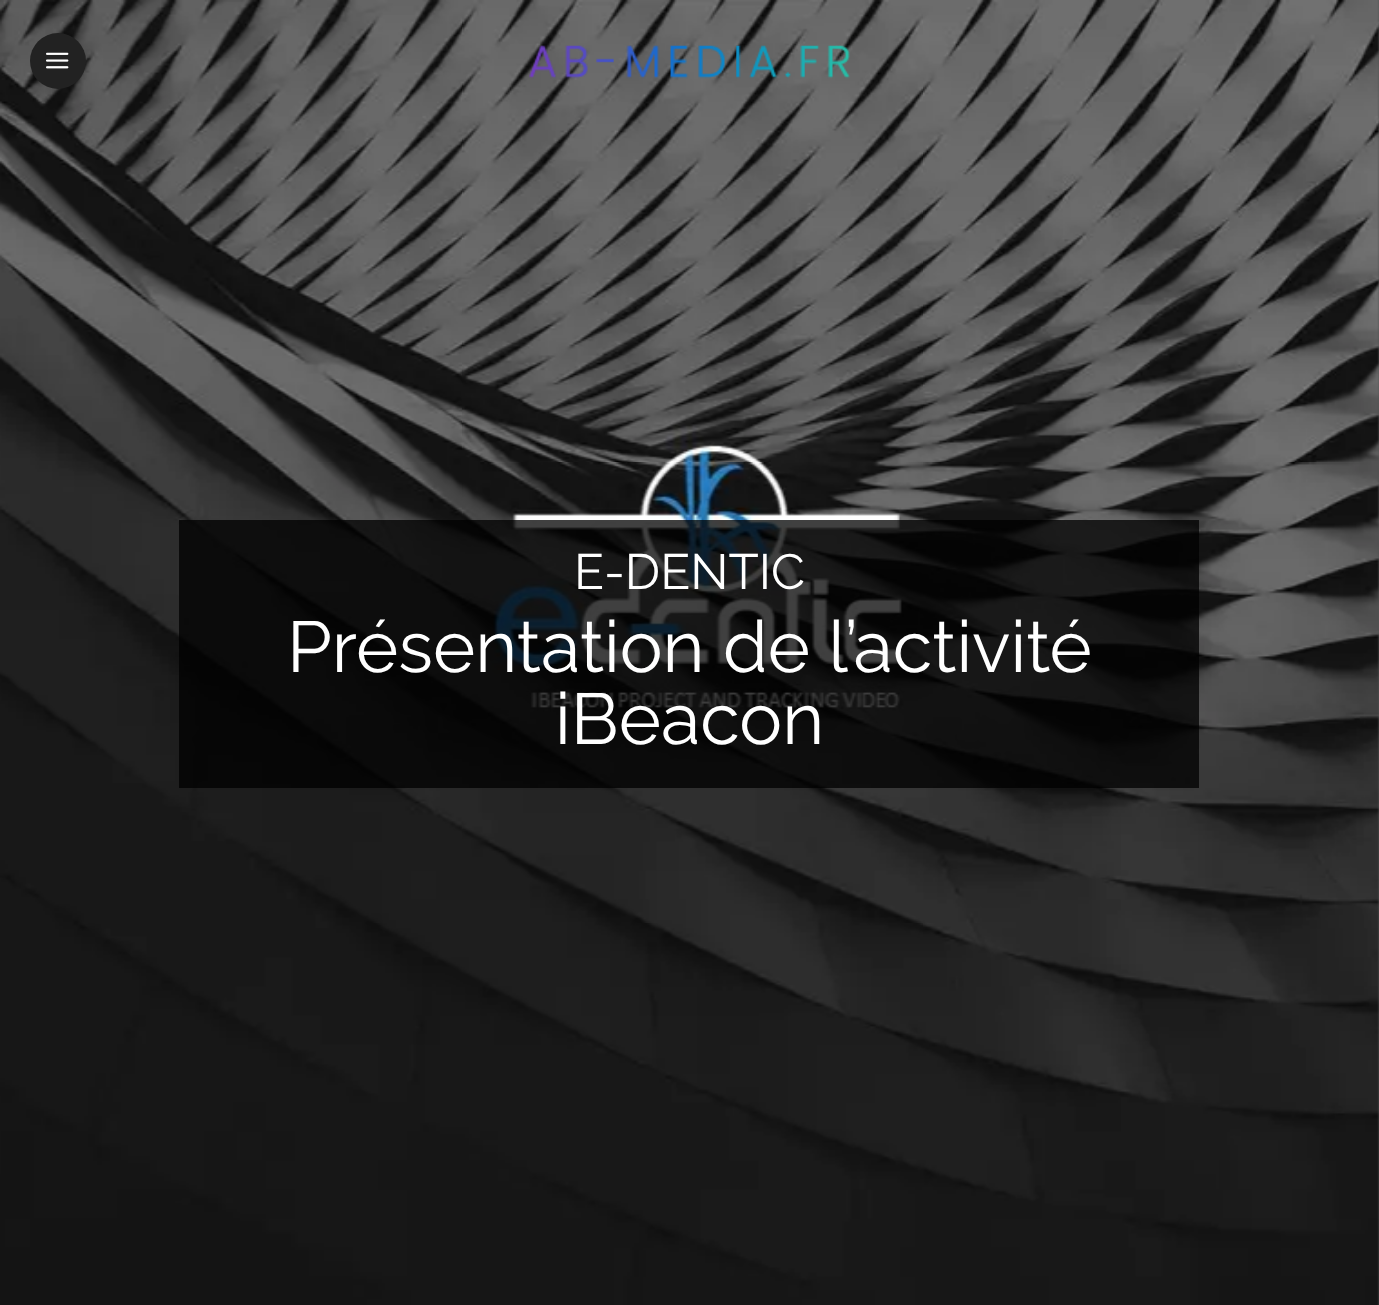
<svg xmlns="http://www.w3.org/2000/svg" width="1379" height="1305">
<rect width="100%" height="100%" fill="#555"/>
<image x="0" y="0" width="1379" height="1305" href="media/3.png"/>
<circle cx="58" cy="61" r="28" fill="#222"/>
<image x="46" y="52" width="23" height="17" href="media/1.png"/>
<image x="529" y="45" width="321" height="34" href="media/2.png"/>
<rect x="179" y="520" width="1020" height="268" fill="#000000bf"/>
<text x="574" y="589" style="font-family:Raleway;font-size:49.5px;font-weight:100;fill:#fff">E-DENTIC</text>
<text x="287" y="672" style="font-family:Raleway;font-size:72px;font-weight:100;fill:#fff">Présentation de l’activité</text>
<text x="555" y="744" style="font-family:Raleway;font-size:72px;font-weight:100;fill:#fff">iBeacon</text>
</svg>
